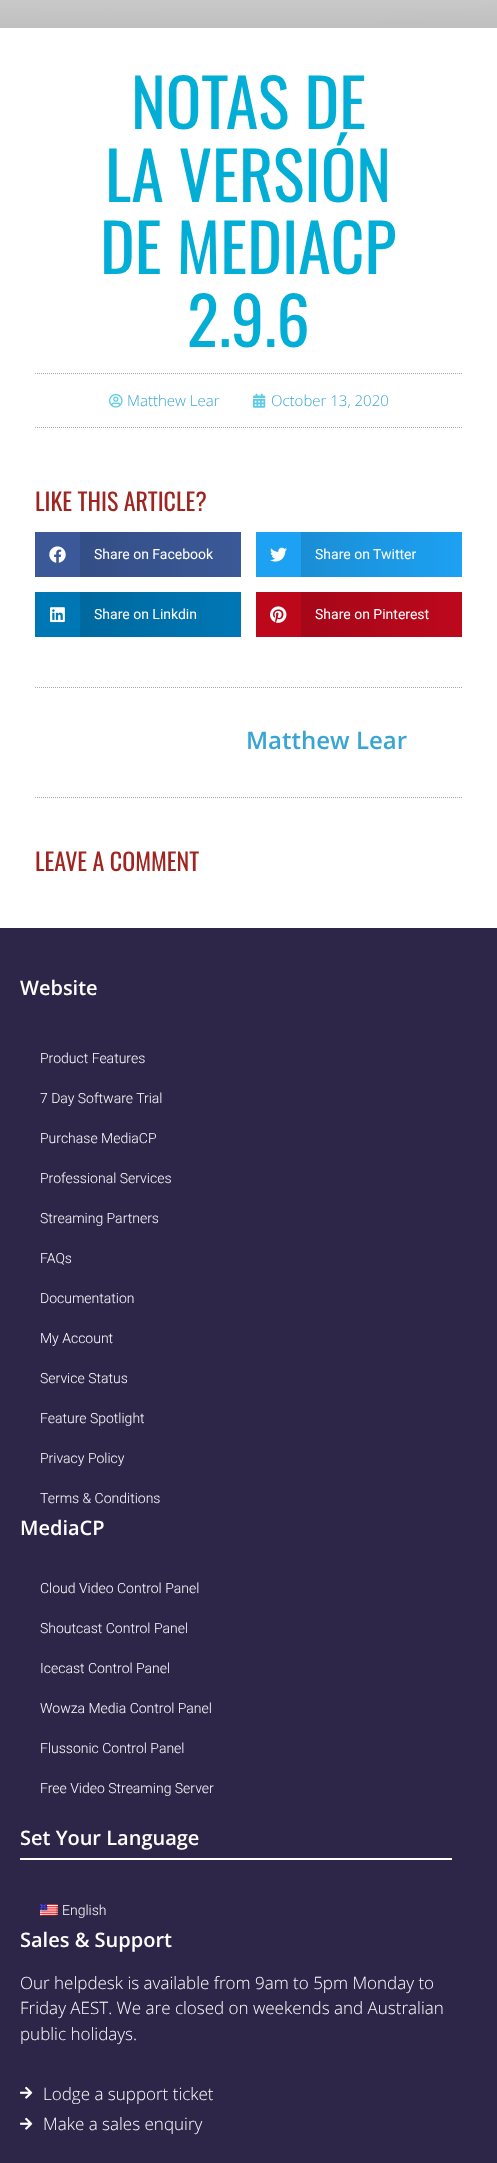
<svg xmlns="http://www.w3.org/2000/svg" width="497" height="2163">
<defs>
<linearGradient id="g1" gradientUnits="userSpaceOnUse" x1="248" y1="-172" x2="249" y2="228"><stop offset="0" stop-color="#fff"/><stop offset="1" stop-color="#808080"/></linearGradient>
<linearGradient id="g2" gradientUnits="userSpaceOnUse" x1="80" y1="555" x2="241" y2="555"><stop offset="0" stop-color="#344e86"/><stop offset="1" stop-color="#3b5998"/></linearGradient>
<linearGradient id="g3" gradientUnits="userSpaceOnUse" x1="301" y1="555" x2="462" y2="555"><stop offset="0" stop-color="#1a8ed5"/><stop offset="1" stop-color="#1da1f2"/></linearGradient>
<linearGradient id="g4" gradientUnits="userSpaceOnUse" x1="80" y1="615" x2="241" y2="615"><stop offset="0" stop-color="#00699f"/><stop offset="1" stop-color="#0077b5"/></linearGradient>
<linearGradient id="g5" gradientUnits="userSpaceOnUse" x1="301" y1="615" x2="462" y2="615"><stop offset="0" stop-color="#a60719"/><stop offset="1" stop-color="#bd081c"/></linearGradient>
</defs>
<rect width="100%" height="100%" fill="#fff"/>
<rect width="497" height="28" fill="url(#g1)"/>
<text x="131" y="129" style="font-family:Oswald;font-size:66px;fill:#02aed6">NOTAS DE</text>
<text x="105" y="202" style="font-family:Oswald;font-size:66px;fill:#02aed6">LA VERSIÓN</text>
<text x="100" y="274" style="font-family:Oswald;font-size:66px;fill:#02aed6">DE MEDIACP</text>
<text x="187" y="347" style="font-family:Oswald;font-size:66px;fill:#02aed6">2.9.6</text>
<path d="M35 373.5h427" fill="none" stroke="#aaa" stroke-dasharray="1 1"/>
<path d="M35 427.5h427" fill="none" stroke="#aaa" stroke-dasharray="1 1"/>
<image x="109" y="394" width="14" height="14" href="media/1.png"/>
<text x="127" y="406" style="font-family:Open Sans;font-size:15px;font-weight:300;fill:#38a5d3">Matthew Lear</text>
<image x="253" y="393" width="13" height="15" href="media/2.png"/>
<text x="271" y="406" style="font-family:Open Sans;font-size:15px;font-weight:300;fill:#38a5d3">October 13, 2020</text>
<text x="35" y="511" style="font-family:Oswald;font-size:24px;fill:#a02521">LIKE THIS ARTICLE?</text>
<rect x="35" y="532" width="45" height="45" fill="#3b5998"/>
<image x="49" y="546" width="17" height="17" href="media/3.png"/>
<rect x="80" y="532" width="161" height="45" fill="url(#g2)"/>
<text x="94" y="559" style="font-family:Roboto;font-size:14px;fill:#fff">Share on Facebook</text>
<rect x="256" y="532" width="45" height="45" fill="#1da1f2"/>
<image x="270" y="547" width="17" height="15" href="media/4.png"/>
<rect x="301" y="532" width="161" height="45" fill="url(#g3)"/>
<text x="315" y="559" style="font-family:Roboto;font-size:14px;fill:#fff">Share on Twitter</text>
<rect x="35" y="592" width="45" height="45" fill="#0077b5"/>
<image x="50" y="607" width="15" height="16" href="media/5.png"/>
<rect x="80" y="592" width="161" height="45" fill="url(#g4)"/>
<text x="94" y="619" style="font-family:Roboto;font-size:14px;fill:#fff">Share on Linkdin</text>
<rect x="256" y="592" width="45" height="45" fill="#bd081c"/>
<image x="270" y="606" width="17" height="17" href="media/6.png"/>
<rect x="301" y="592" width="161" height="45" fill="url(#g5)"/>
<text x="315" y="619" style="font-family:Roboto;font-size:14px;fill:#fff">Share on Pinterest</text>
<path d="M35 687.5h427" fill="none" stroke="#aaa" stroke-dasharray="1 1"/>
<path d="M35 797.5h427" fill="none" stroke="#aaa" stroke-dasharray="1 1"/>
<text x="246" y="749" style="font-family:Open Sans;font-size:24px;font-weight:600;fill:#38a5d3">Matthew Lear</text>
<text x="35" y="871" style="font-family:Oswald;font-size:24px;fill:#a02521">LEAVE A COMMENT</text>
<rect y="928" width="497" height="1235" fill="#2d2649"/>
<text x="20" y="995" style="font-family:Open Sans;font-size:20px;font-weight:600;fill:#fff">Website</text>
<text x="40" y="1063" style="font-family:Roboto;font-size:14px;font-weight:300;fill:#fff">Product Features</text>
<text x="40" y="1103" style="font-family:Roboto;font-size:14px;font-weight:300;fill:#fff">7 Day Software Trial</text>
<text x="40" y="1143" style="font-family:Roboto;font-size:14px;font-weight:300;fill:#fff">Purchase MediaCP</text>
<text x="40" y="1183" style="font-family:Roboto;font-size:14px;font-weight:300;fill:#fff">Professional Services</text>
<text x="40" y="1223" style="font-family:Roboto;font-size:14px;font-weight:300;fill:#fff">Streaming Partners</text>
<text x="40" y="1263" style="font-family:Roboto;font-size:14px;font-weight:300;fill:#fff">FAQs</text>
<text x="40" y="1303" style="font-family:Roboto;font-size:14px;font-weight:300;fill:#fff">Documentation</text>
<text x="40" y="1343" style="font-family:Roboto;font-size:14px;font-weight:300;fill:#fff">My Account</text>
<text x="40" y="1383" style="font-family:Roboto;font-size:14px;font-weight:300;fill:#fff">Service Status</text>
<text x="40" y="1423" style="font-family:Roboto;font-size:14px;font-weight:300;fill:#fff">Feature Spotlight</text>
<text x="40" y="1463" style="font-family:Roboto;font-size:14px;font-weight:300;fill:#fff">Privacy Policy</text>
<text x="40" y="1503" style="font-family:Roboto;font-size:14px;font-weight:300;fill:#fff">Terms &amp; Conditions</text>
<text x="20" y="1535" style="font-family:Open Sans;font-size:20px;font-weight:600;fill:#fff">MediaCP</text>
<text x="40" y="1593" style="font-family:Roboto;font-size:14px;font-weight:300;fill:#fff">Cloud Video Control Panel</text>
<text x="40" y="1633" style="font-family:Roboto;font-size:14px;font-weight:300;fill:#fff">Shoutcast Control Panel</text>
<text x="40" y="1673" style="font-family:Roboto;font-size:14px;font-weight:300;fill:#fff">Icecast Control Panel</text>
<text x="40" y="1713" style="font-family:Roboto;font-size:14px;font-weight:300;fill:#fff">Wowza Media Control Panel</text>
<text x="40" y="1753" style="font-family:Roboto;font-size:14px;font-weight:300;fill:#fff">Flussonic Control Panel</text>
<text x="40" y="1793" style="font-family:Roboto;font-size:14px;font-weight:300;fill:#fff">Free Video Streaming Server</text>
<rect x="20" y="1858" width="432" height="2" fill="#fff"/>
<text x="20" y="1845" style="font-family:Open Sans;font-size:20px;font-weight:600;fill:#fff">Set Your Language</text>
<image x="40" y="1904" width="18" height="12" href="media/7.png"/>
<text x="62" y="1915" style="font-family:Roboto;font-size:14px;font-weight:300;fill:#fff">English</text>
<text x="20" y="1947" style="font-family:Open Sans;font-size:20px;font-weight:600;fill:#fff">Sales &amp; Support</text>
<text x="20" y="1989" style="font-family:Open Sans;font-size:17px;font-weight:300;fill:#fff">Our helpdesk is available from 9am to 5pm Monday to</text>
<text x="20" y="2014" style="font-family:Open Sans;font-size:17px;font-weight:300;fill:#fff">Friday AEST. We are closed on weekends and Australian</text>
<text x="20" y="2040" style="font-family:Open Sans;font-size:17px;font-weight:300;fill:#fff">public holidays.</text>
<image x="20" y="2086" width="13" height="13" href="media/8.png"/>
<text x="43" y="2100" style="font-family:Open Sans;font-size:17px;font-weight:300;fill:#fff">Lodge a support ticket</text>
<image x="20" y="2117" width="13" height="13" href="media/8.png"/>
<text x="43" y="2130" style="font-family:Open Sans;font-size:17px;font-weight:300;fill:#fff">Make a sales enquiry</text>
</svg>
